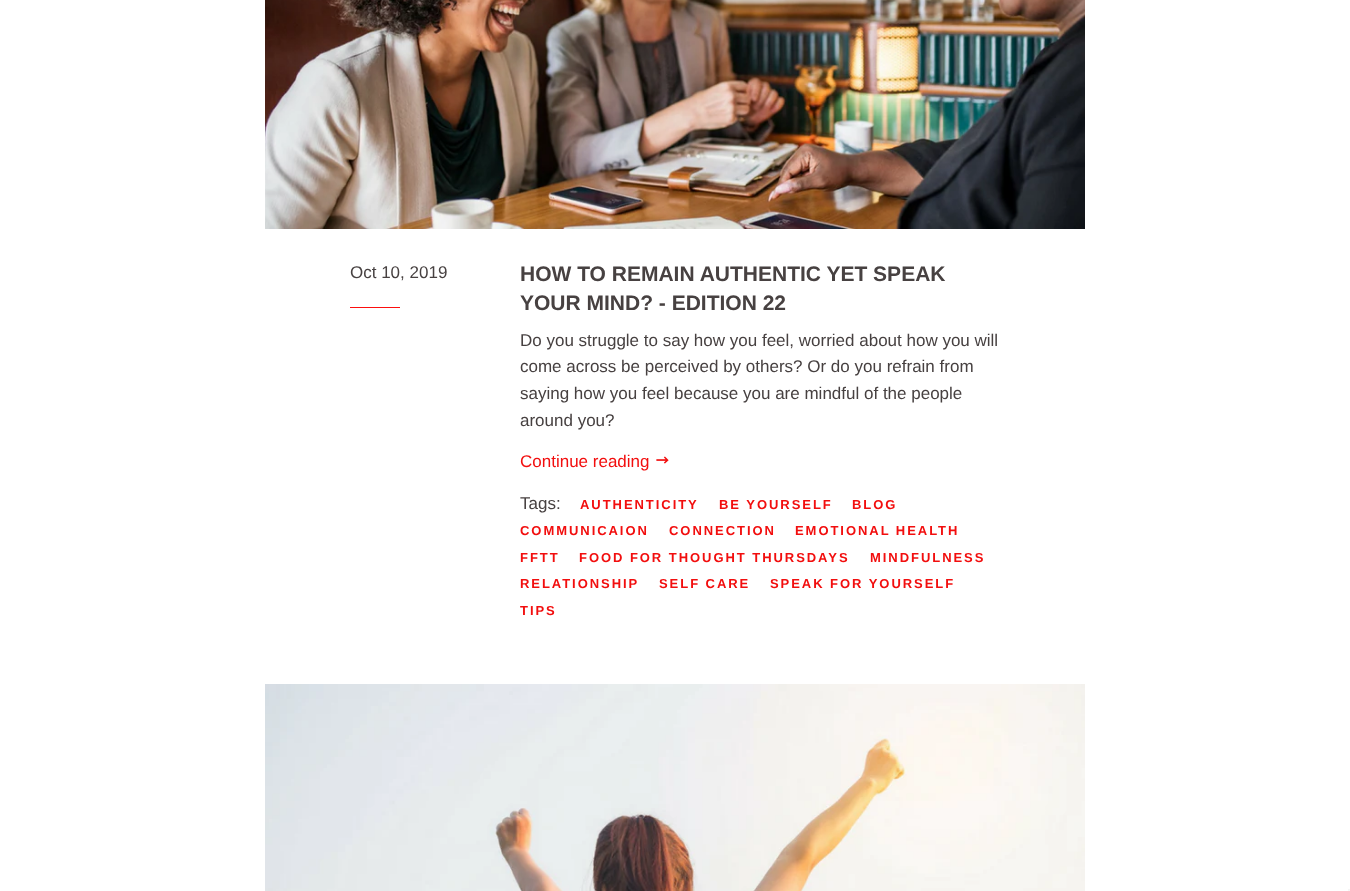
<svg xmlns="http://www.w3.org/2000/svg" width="1350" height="891">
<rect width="100%" height="100%" fill="#fff"/>
<image x="265" y="0" width="820" height="229" href="media/1.png"/>
<text x="350" y="278" style="font-family:Liberation Sans;font-size:17px;fill:#474141">Oct 10, 2019</text>
<rect x="350" y="307" width="50" height="1" fill="#fc0e0e"/>
<text x="520" y="281" style="font-family:Liberation Sans;font-size:21px;font-weight:bold;fill:#474141">HOW TO REMAIN AUTHENTIC YET SPEAK</text>
<text x="520" y="310" style="font-family:Liberation Sans;font-size:21px;font-weight:bold;fill:#474141">YOUR MIND? - EDITION 22</text>
<text x="520" y="346" style="font-family:Liberation Sans;font-size:17px;fill:#474141">Do you struggle to say how you feel, worried about how you will</text>
<text x="520" y="372" style="font-family:Liberation Sans;font-size:17px;fill:#474141">come across be perceived by others? Or do you refrain from</text>
<text x="520" y="399" style="font-family:Liberation Sans;font-size:17px;fill:#474141">saying how you feel because you are mindful of the people</text>
<text x="520" y="426" style="font-family:Liberation Sans;font-size:17px;fill:#474141">around you?</text>
<text x="520" y="467" style="font-family:Liberation Sans;font-size:17px;fill:#f20e0e">Continue reading</text>
<image x="656" y="456" width="13" height="8" href="media/2.png"/>
<text x="520" y="509" style="font-family:Liberation Sans;font-size:17px;fill:#474141">Tags:</text>
<text x="580" y="509" style="font-family:Liberation Sans;font-size:13px;font-weight:bold;letter-spacing:1.95px;fill:#f20e0e">AUTHENTICITY</text>
<text x="719" y="509" style="font-family:Liberation Sans;font-size:13px;font-weight:bold;letter-spacing:1.95px;fill:#f20e0e">BE YOURSELF</text>
<text x="852" y="509" style="font-family:Liberation Sans;font-size:13px;font-weight:bold;letter-spacing:1.95px;fill:#f20e0e">BLOG</text>
<text x="520" y="535" style="font-family:Liberation Sans;font-size:13px;font-weight:bold;letter-spacing:1.95px;fill:#f20e0e">COMMUNICAION</text>
<text x="669" y="535" style="font-family:Liberation Sans;font-size:13px;font-weight:bold;letter-spacing:1.95px;fill:#f20e0e">CONNECTION</text>
<text x="795" y="535" style="font-family:Liberation Sans;font-size:13px;font-weight:bold;letter-spacing:1.95px;fill:#f20e0e">EMOTIONAL HEALTH</text>
<text x="520" y="562" style="font-family:Liberation Sans;font-size:13px;font-weight:bold;letter-spacing:1.95px;fill:#f20e0e">FFTT</text>
<text x="579" y="562" style="font-family:Liberation Sans;font-size:13px;font-weight:bold;letter-spacing:1.95px;fill:#f20e0e">FOOD FOR THOUGHT THURSDAYS</text>
<text x="870" y="562" style="font-family:Liberation Sans;font-size:13px;font-weight:bold;letter-spacing:1.95px;fill:#f20e0e">MINDFULNESS</text>
<text x="520" y="588" style="font-family:Liberation Sans;font-size:13px;font-weight:bold;letter-spacing:1.95px;fill:#f20e0e">RELATIONSHIP</text>
<text x="659" y="588" style="font-family:Liberation Sans;font-size:13px;font-weight:bold;letter-spacing:1.95px;fill:#f20e0e">SELF CARE</text>
<text x="770" y="588" style="font-family:Liberation Sans;font-size:13px;font-weight:bold;letter-spacing:1.95px;fill:#f20e0e">SPEAK FOR YOURSELF</text>
<text x="520" y="615" style="font-family:Liberation Sans;font-size:13px;font-weight:bold;letter-spacing:1.95px;fill:#f20e0e">TIPS</text>
<image x="265" y="684" width="820" height="207" href="media/3.png"/>
<rect x="1348" y="889" width="2" height="2" fill="#f5f5f5"/>
</svg>
